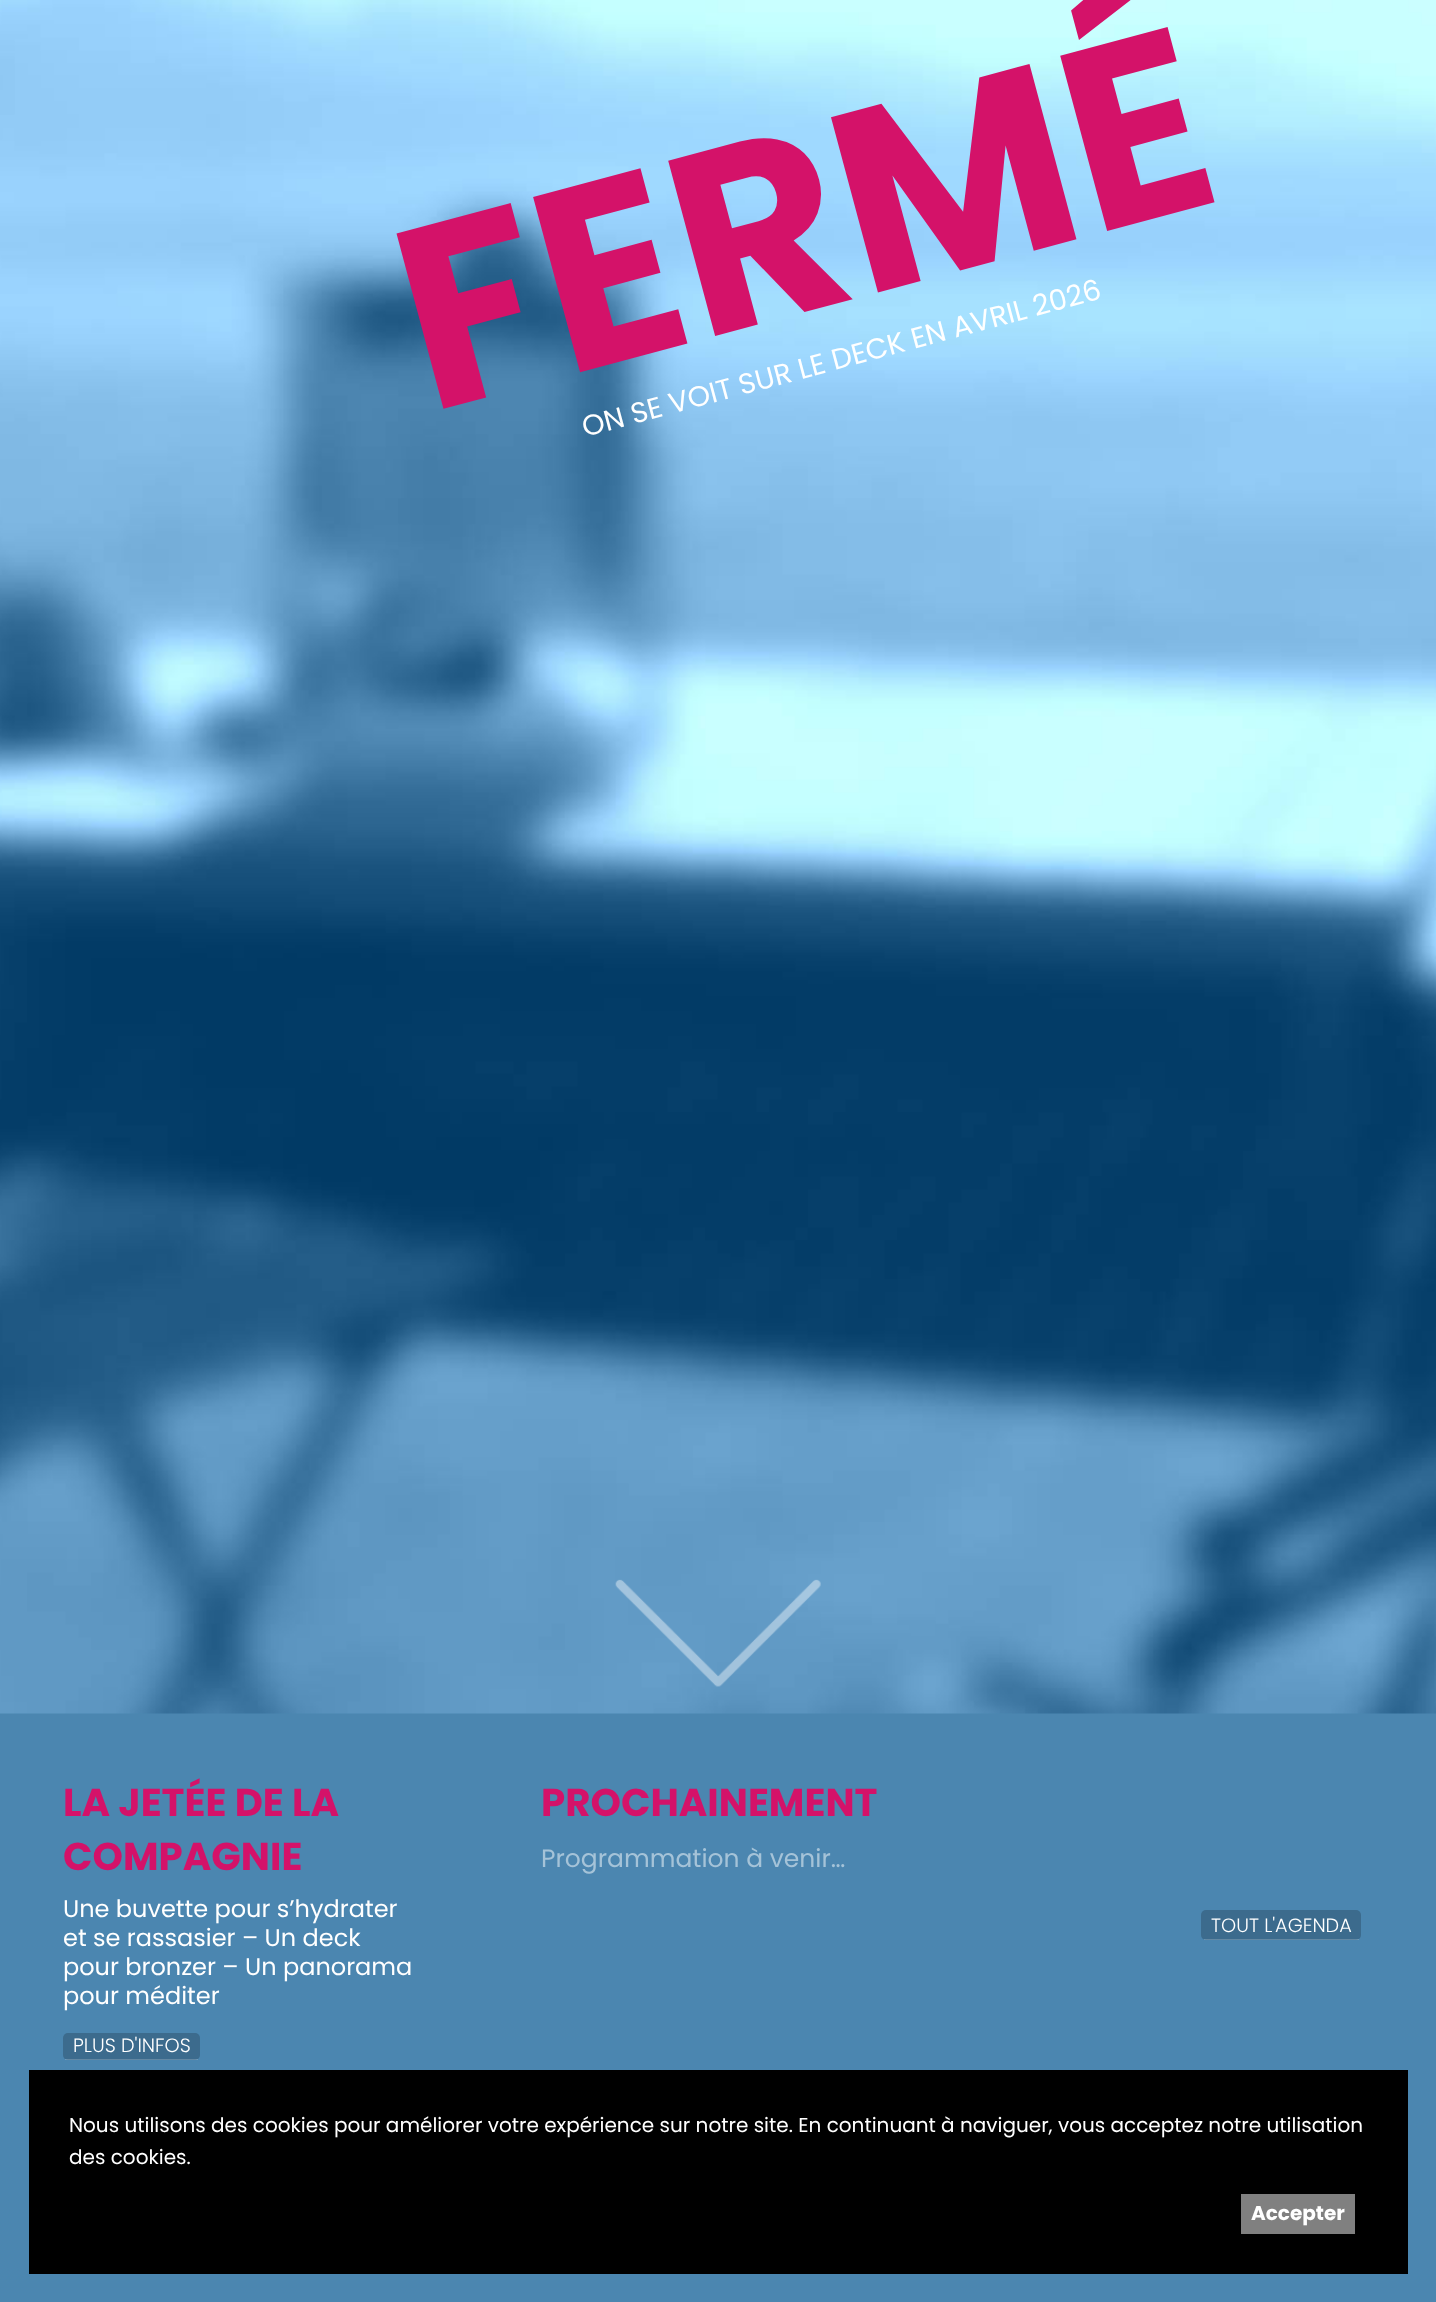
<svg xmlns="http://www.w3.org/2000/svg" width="1436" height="2302">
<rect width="100%" height="100%" fill="#4b86b0"/>
<image x="0" y="0" width="1436" height="1714" href="media/1.png"/>
<text x="428" y="413" transform="rotate(-15 428 413)" style="font-family:Poppins;font-size:258.5px;font-weight:bold;fill:#d41269">FERMÉ</text>
<text x="585" y="437" transform="rotate(-15 585 437)" style="font-family:Poppins;font-size:28.75px;fill:#fff">ON SE VOIT SUR LE DECK EN AVRIL 2026</text>
<image x="615" y="1579" width="206" height="108" href="media/2.png"/>
<text x="63" y="1816" style="font-family:Poppins;font-size:38.75px;font-weight:bold;fill:#d41269">LA JETÉE DE LA</text>
<text x="63" y="1870" style="font-family:Poppins;font-size:38.75px;font-weight:bold;fill:#d41269">COMPAGNIE</text>
<text x="63" y="1917" style="font-family:Poppins;font-size:24px;fill:#fff">Une buvette pour s’hydrater</text>
<text x="63" y="1946" style="font-family:Poppins;font-size:24px;fill:#fff">et se rassasier – Un deck</text>
<text x="63" y="1975" style="font-family:Poppins;font-size:24px;fill:#fff">pour bronzer – Un panorama</text>
<text x="63" y="2004" style="font-family:Poppins;font-size:24px;fill:#fff">pour méditer</text>
<rect x="63" y="2033" width="137" height="27" rx="5" fill="#3c6b8d"/>
<text x="73" y="2052" style="font-family:Poppins;font-size:19.25px;font-weight:300;fill:#fff">PLUS D'INFOS</text>
<rect x="65" y="2059" width="133" height="1" fill="#ffffff33"/>
<text x="541" y="1816" style="font-family:Poppins;font-size:38.75px;font-weight:bold;fill:#d41269">PROCHAINEMENT</text>
<text x="541" y="1867" style="font-family:Poppins;font-size:25px;fill:#a5c3d8">Programmation à venir…</text>
<rect x="1201" y="1910" width="160" height="30" rx="5" fill="#3c6b8d"/>
<rect x="1204" y="1939" width="155" height="1" fill="#ffffff33"/>
<text x="1211" y="1932" style="font-family:Poppins;font-size:19.25px;font-weight:300;fill:#fff">TOUT L'AGENDA</text>
<rect x="29" y="2070" width="1379" height="204" fill="#000"/>
<text x="69" y="2132" style="font-family:Poppins;font-size:20px;fill:#fff">Nous utilisons des cookies pour améliorer votre expérience sur notre site. En continuant à naviguer, vous acceptez notre utilisation</text>
<text x="69" y="2164" style="font-family:Poppins;font-size:20px;fill:#fff">des cookies.</text>
<rect x="1241" y="2194" width="114" height="40" fill="#808080"/>
<text x="1251" y="2220" style="font-family:Poppins;font-size:20px;font-weight:bold;fill:#fff">Accepter</text>
</svg>
